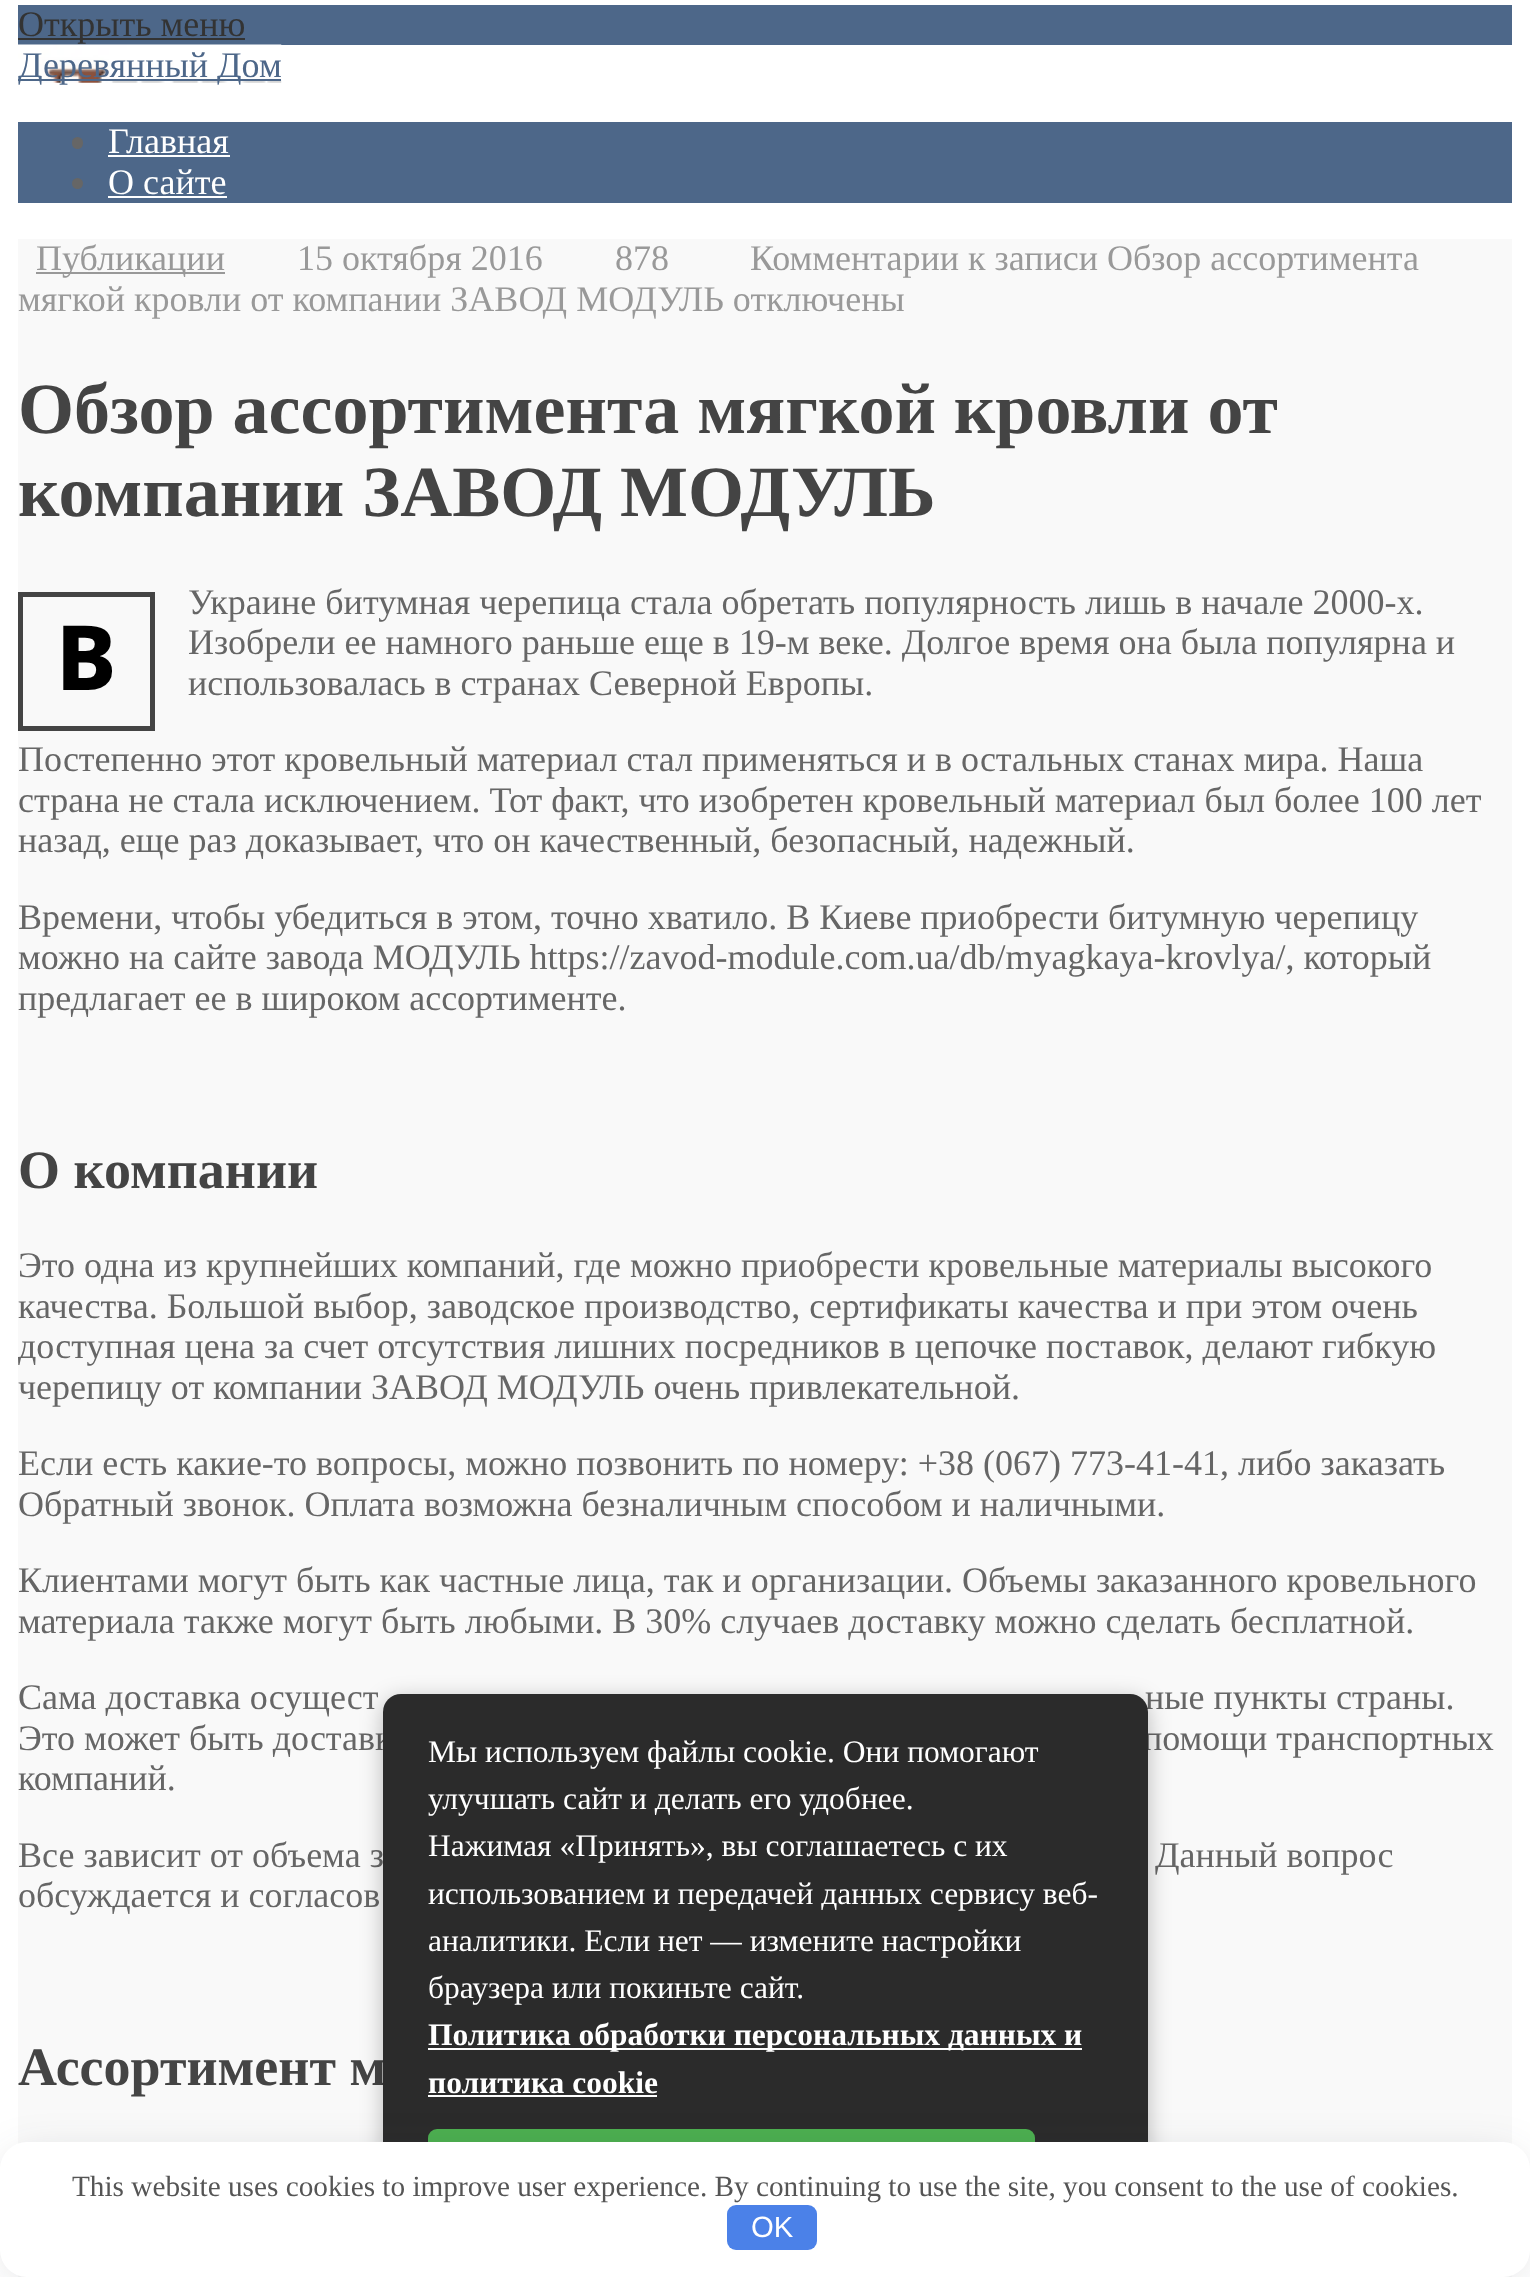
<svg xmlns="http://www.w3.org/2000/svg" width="1530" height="2277">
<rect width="100%" height="100%" fill="#fff"/>
<rect x="18" y="5" width="1494" height="40" fill="#4d6789"/>
<rect x="18" y="38" width="227" height="2" fill="#333"/>
<text x="18" y="36" style="font-family:Liberation Serif;font-size:36px;fill:#333">Открыть меню</text>
<image x="18" y="44" width="264" height="39" href="media/1.png"/>
<rect x="18" y="79" width="263" height="2" fill="#4d6789"/>
<text x="18" y="77" style="font-family:Liberation Serif;font-size:36px;fill:#4d6789">Деревянный Дом</text>
<rect x="18" y="122" width="1494" height="81" fill="#4d6789"/>
<rect x="72" y="137" width="11" height="12" rx="5.5" fill="#666"/>
<text x="108" y="153" style="font-family:Liberation Serif;font-size:36px;fill:#fff">Главная</text>
<rect x="108" y="155" width="122" height="2" fill="#fff"/>
<circle cx="77.5" cy="183.5" r="5.5" fill="#666"/>
<text x="108" y="194" style="font-family:Liberation Serif;font-size:36px;fill:#fff">О сайте</text>
<rect x="108" y="196" width="119" height="2" fill="#fff"/>
<rect x="18" y="239" width="1494" height="2038" fill="#f9f9f9"/>
<rect x="36" y="272" width="189" height="2" fill="#999"/>
<text x="36" y="270" style="font-family:Liberation Serif;font-size:36px;fill:#999">Публикации</text>
<text x="297" y="270" style="font-family:Liberation Serif;font-size:36px;fill:#999">15 октября 2016</text>
<text x="615" y="270" style="font-family:Liberation Serif;font-size:36px;fill:#999">878</text>
<text x="750" y="270" style="font-family:Liberation Serif;font-size:36px;fill:#999">Комментарии к записи Обзор ассортимента</text>
<text x="18" y="311" style="font-family:Liberation Serif;font-size:36px;fill:#999">мягкой кровли от компании ЗАВОД МОДУЛЬ отключены</text>
<text x="18" y="433" style="font-family:Liberation Serif;font-size:72px;font-weight:bold;fill:#444">Обзор ассортимента мягкой кровли от</text>
<text x="18" y="516" style="font-family:Liberation Serif;font-size:72px;font-weight:bold;fill:#444">компании ЗАВОД МОДУЛЬ</text>
<text x="188" y="614" style="font-family:Liberation Serif;font-size:36px;fill:#666">Украине битумная черепица стала обретать популярность лишь в начале 2000-х.</text>
<rect x="20.5" y="594.5" width="132" height="134" fill="none" stroke="#444" stroke-width="5"/>
<text x="56" y="690" style="font-family:Noto Sans;font-size:90px;font-weight:800;fill:#000">В</text>
<text x="188" y="654" style="font-family:Liberation Serif;font-size:36px;fill:#666">Изобрели ее намного раньше еще в 19-м веке. Долгое время она была популярна и</text>
<text x="188" y="695" style="font-family:Liberation Serif;font-size:36px;fill:#666">использовалась в странах Северной Европы.</text>
<text x="18" y="771" style="font-family:Liberation Serif;font-size:36px;fill:#666">Постепенно этот кровельный материал стал применяться и в остальных станах мира. Наша</text>
<text x="18" y="812" style="font-family:Liberation Serif;font-size:36px;fill:#666">страна не стала исключением. Тот факт, что изобретен кровельный материал был более 100 лет</text>
<text x="18" y="852" style="font-family:Liberation Serif;font-size:36px;fill:#666">назад, еще раз доказывает, что он качественный, безопасный, надежный.</text>
<text x="18" y="929" style="font-family:Liberation Serif;font-size:36px;fill:#666">Времени, чтобы убедиться в этом, точно хватило. В Киеве приобрести битумную черепицу</text>
<text x="18" y="969" style="font-family:Liberation Serif;font-size:36px;fill:#666">можно на сайте завода МОДУЛЬ https://zavod-module.com.ua/db/myagkaya-krovlya/, который</text>
<text x="18" y="1010" style="font-family:Liberation Serif;font-size:36px;fill:#666">предлагает ее в широком ассортименте.</text>
<text x="18" y="1188" style="font-family:Liberation Serif;font-size:54px;font-weight:bold;fill:#444">О компании</text>
<text x="18" y="1277" style="font-family:Liberation Serif;font-size:36px;fill:#666">Это одна из крупнейших компаний, где можно приобрести кровельные материалы высокого</text>
<text x="18" y="1318" style="font-family:Liberation Serif;font-size:36px;fill:#666">качества. Большой выбор, заводское производство, сертификаты качества и при этом очень</text>
<text x="18" y="1358" style="font-family:Liberation Serif;font-size:36px;fill:#666">доступная цена за счет отсутствия лишних посредников в цепочке поставок, делают гибкую</text>
<text x="18" y="1399" style="font-family:Liberation Serif;font-size:36px;fill:#666">черепицу от компании ЗАВОД МОДУЛЬ очень привлекательной.</text>
<text x="18" y="1475" style="font-family:Liberation Serif;font-size:36px;fill:#666">Если есть какие-то вопросы, можно позвонить по номеру: +38 (067) 773-41-41, либо заказать</text>
<text x="18" y="1516" style="font-family:Liberation Serif;font-size:36px;fill:#666">Обратный звонок. Оплата возможна безналичным способом и наличными.</text>
<text x="18" y="1592" style="font-family:Liberation Serif;font-size:36px;fill:#666">Клиентами могут быть как частные лица, так и организации. Объемы заказанного кровельного</text>
<text x="18" y="1633" style="font-family:Liberation Serif;font-size:36px;fill:#666">материала также могут быть любыми. В 30% случаев доставку можно сделать бесплатной.</text>
<text x="18" y="1709" style="font-family:Liberation Serif;font-size:36px;fill:#666">Сама доставка осущест</text>
<text x="1145" y="1709" style="font-family:Liberation Serif;font-size:36px;fill:#666">ные пункты страны.</text>
<text x="18" y="1750" style="font-family:Liberation Serif;font-size:36px;fill:#666">Это может быть доставк</text>
<text x="1143" y="1750" style="font-family:Liberation Serif;font-size:36px;fill:#666">помощи транспортных</text>
<text x="18" y="1790" style="font-family:Liberation Serif;font-size:36px;fill:#666">компаний.</text>
<text x="18" y="1867" style="font-family:Liberation Serif;font-size:36px;fill:#666">Все зависит от объема з</text>
<text x="1155" y="1867" style="font-family:Liberation Serif;font-size:36px;fill:#666">Данный вопрос</text>
<text x="18" y="1907" style="font-family:Liberation Serif;font-size:36px;fill:#666">обсуждается и согласов</text>
<text x="18" y="2085" style="font-family:Liberation Serif;font-size:54px;font-weight:bold;fill:#444">Ассортимент м</text>
<rect x="383" y="1699" width="765" height="538" rx="18" fill="#00000040" filter="blur(11px)"/>
<rect x="383" y="1694" width="765" height="538" rx="18" fill="#2b2b2b"/>
<text x="428" y="1762" style="font-family:Liberation Serif;font-size:31.5px;fill:#fff">Мы используем файлы cookie. Они помогают</text>
<text x="428" y="1809" style="font-family:Liberation Serif;font-size:31.5px;fill:#fff">улучшать сайт и делать его удобнее.</text>
<text x="428" y="1856" style="font-family:Liberation Serif;font-size:31.5px;fill:#fff">Нажимая «Принять», вы соглашаетесь с их</text>
<text x="428" y="1904" style="font-family:Liberation Serif;font-size:31.5px;fill:#fff">использованием и передачей данных сервису веб-</text>
<text x="428" y="1951" style="font-family:Liberation Serif;font-size:31.5px;fill:#fff">аналитики. Если нет — измените настройки</text>
<text x="428" y="1998" style="font-family:Liberation Serif;font-size:31.5px;fill:#fff">браузера или покиньте сайт.</text>
<rect x="428" y="2048" width="654" height="2" fill="#fefefe"/>
<text x="428" y="2045" style="font-family:Liberation Serif;font-size:31.5px;font-weight:bold;fill:#fff">Политика обработки персональных данных и</text>
<text x="428" y="2093" style="font-family:Liberation Serif;font-size:31.5px;font-weight:bold;fill:#fff">политика cookie</text>
<rect x="428" y="2095" width="229" height="2" fill="#fefefe"/>
<rect x="428" y="2129" width="607" height="69" rx="9" fill="#4caf50"/>
<rect x="11" y="2160" width="1508" height="113" rx="16" fill="#292c3833" filter="blur(22.5px)"/>
<rect y="2142" width="1530" height="135" rx="27" fill="#fff"/>
<text x="72" y="2196" style="font-family:Liberation Serif;font-size:29.25px;fill:#555">This website uses cookies to improve user experience. By continuing to use the site, you consent to the use of cookies.</text>
<rect x="727" y="2205" width="90" height="45" rx="9" fill="#4b81e8"/>
<text x="751" y="2237" style="font-family:Liberation Sans;font-size:29.25px;fill:#fff">OK</text>
</svg>
